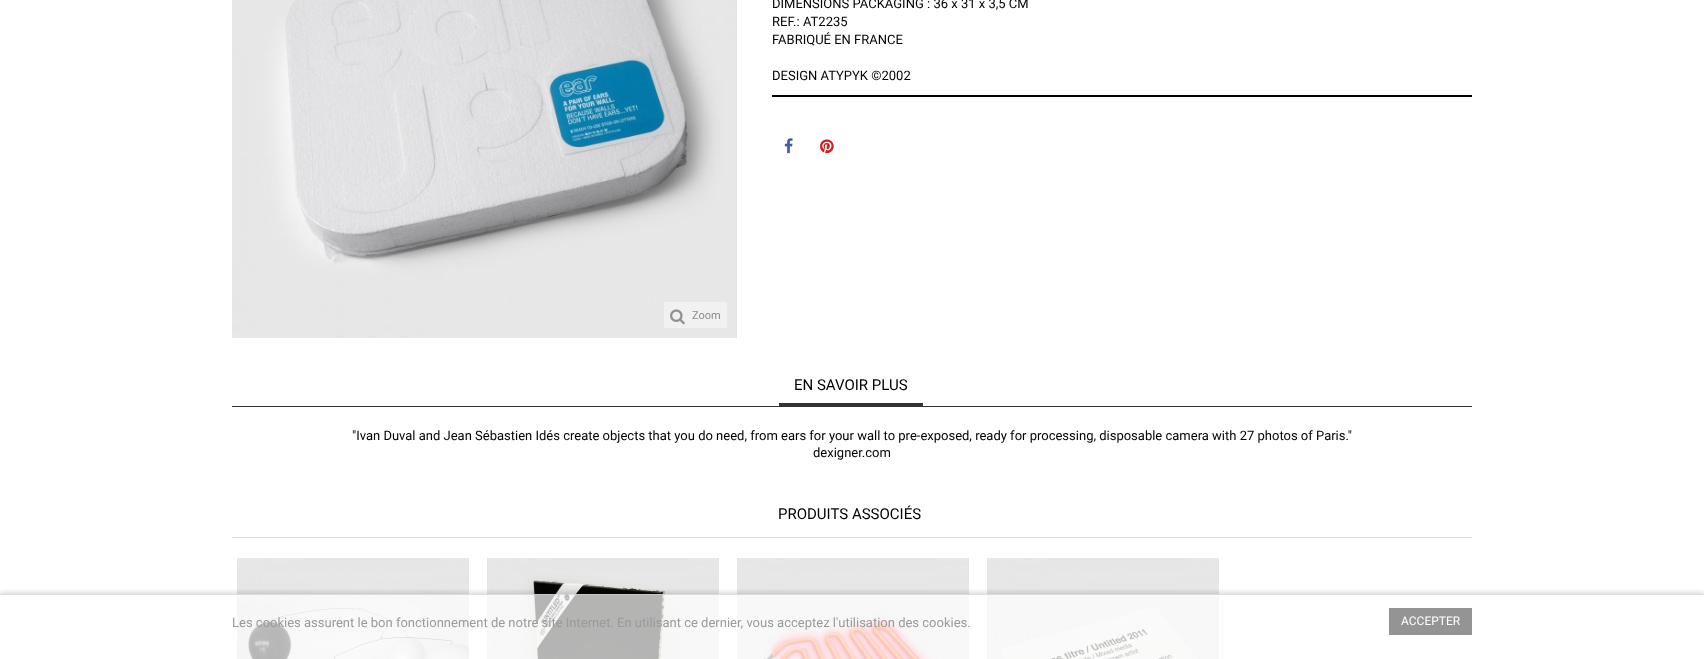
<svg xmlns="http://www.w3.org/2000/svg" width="1704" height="659">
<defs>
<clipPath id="clip1"><rect x="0" y="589" width="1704" height="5"/></clipPath>
</defs>
<rect width="100%" height="100%" fill="#fff"/>
<text x="772" y="8" style="font-family:Roboto;font-size:13px;fill:#000">DIMENSIONS PACKAGING : 36 x 31 x 3,5 CM</text>
<text x="772" y="26" style="font-family:Roboto;font-size:13px;fill:#000">REF.: AT2235</text>
<text x="772" y="44" style="font-family:Roboto;font-size:13px;fill:#000">FABRIQUÉ EN FRANCE</text>
<text x="772" y="80" style="font-family:Roboto;font-size:13px;fill:#000">DESIGN ATYPYK ©2002</text>
<rect x="772" y="95" width="700" height="2" fill="#000"/>
<image x="784" y="138" width="9" height="16" href="media/1.png"/>
<image x="820" y="139" width="14" height="15" href="media/2.png"/>
<image x="232" y="0" width="505" height="338" href="media/3.png"/>
<rect x="664" y="302" width="63" height="26" fill="#f1f1f1"/>
<image x="670" y="309" width="15" height="16" href="media/4.png"/>
<text x="692" y="319" style="font-family:Roboto;font-size:11px;fill:#8b8b8b">Zoom</text>
<rect x="779" y="403" width="144" height="3" fill="#333"/>
<text x="794" y="390" style="font-family:Roboto;font-size:15px;fill:#000">EN SAVOIR PLUS</text>
<rect x="232" y="406" width="1240" height="1" fill="#333"/>
<text x="352" y="440" style="font-family:Roboto;font-size:13px;fill:#000">"Ivan Duval and Jean Sébastien Idés create objects that you do need, from ears for your wall to pre-exposed, ready for processing, disposable camera with 27 photos of Paris."</text>
<text x="813" y="457" style="font-family:Roboto;font-size:13px;fill:#000">dexigner.com</text>
<rect x="232" y="537" width="1240" height="1" fill="#ddd"/>
<text x="778" y="519" style="font-family:Roboto;font-size:15px;fill:#000">PRODUITS ASSOCIÉS</text>
<image x="237" y="558" width="232" height="101" href="media/5.png"/>
<image x="487" y="558" width="232" height="101" href="media/6.png"/>
<image x="737" y="558" width="232" height="101" href="media/7.png"/>
<image x="987" y="558" width="232" height="101" href="media/8.png"/>
<g clip-path="url(#clip1)">
<rect y="592" width="1704" height="65" fill="#00000024" filter="blur(2.5px)"/>
</g>
<rect x="237" y="594" width="982" height="65" fill="#ffffffb3"/>
<rect y="594" width="1704" height="1" fill="#cececeb3"/>
<text x="232" y="627" style="font-family:Roboto;font-size:13px;fill:#9a9a9a">Les cookies assurent le bon fonctionnement de notre site Internet. En utilisant ce dernier, vous acceptez l'utilisation des cookies.</text>
<rect x="1389" y="608" width="83" height="27" fill="#949494"/>
<text x="1401" y="625" style="font-family:Roboto;font-size:12px;fill:#fff">ACCEPTER</text>
</svg>
